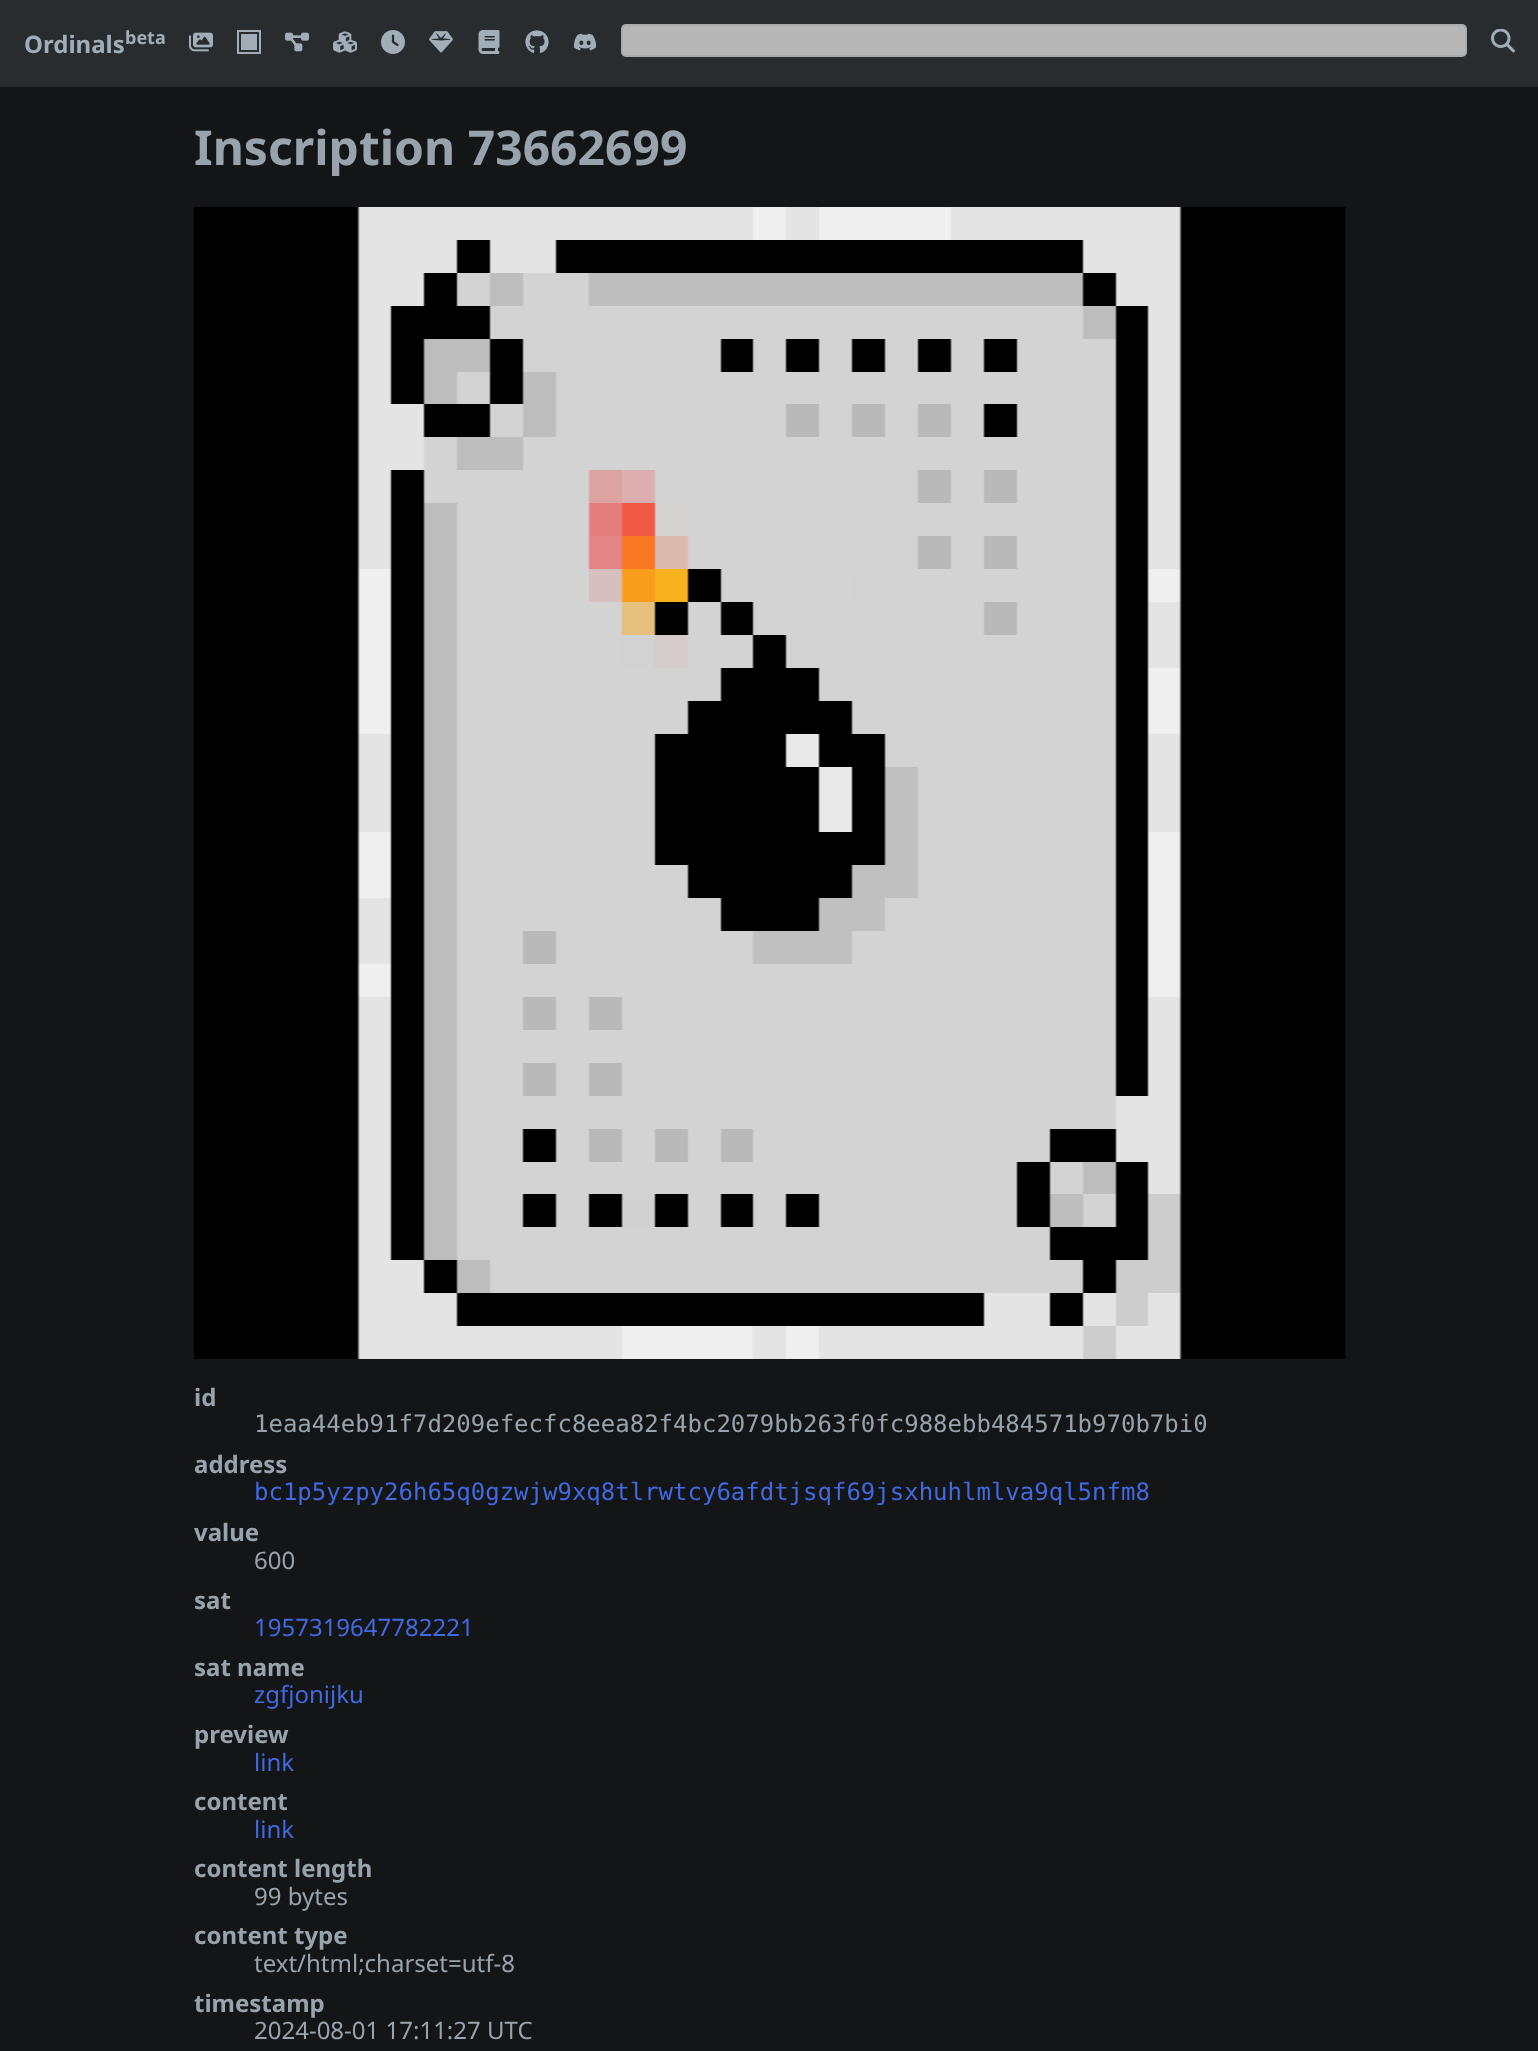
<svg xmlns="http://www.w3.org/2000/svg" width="1538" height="2051">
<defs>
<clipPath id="clip1"><rect x="194" y="120" width="1152" height="56"/></clipPath>
</defs>
<rect width="100%" height="100%" fill="#131516"/>
<rect width="1538" height="87" fill="#292c2f"/>
<text x="24" y="53" style="font-family:Noto Sans;font-size:24px;font-weight:bold;fill:#a1adb8">Ordinals</text>
<text x="125" y="44" style="font-family:Noto Sans;font-size:18px;font-weight:bold;fill:#a1adb8">beta</text>
<image x="189" y="32" width="24" height="20" href="media/1.png"/>
<image x="237" y="30" width="24" height="24" href="media/2.png"/>
<image x="285" y="32" width="24" height="20" href="media/3.png"/>
<image x="333" y="31" width="24" height="22" href="media/4.png"/>
<image x="381" y="30" width="24" height="24" href="media/5.png"/>
<image x="429" y="31" width="24" height="22" href="media/6.png"/>
<image x="478" y="30" width="22" height="24" href="media/7.png"/>
<image x="525" y="30" width="24" height="23" href="media/8.png"/>
<image x="574" y="33" width="22" height="18" href="media/9.png"/>
<rect x="622" y="25" width="844" height="31" rx="4" fill="#b7b7b7" stroke="#aaa" stroke-width="2"/>
<image x="1491" y="29" width="24" height="24" href="media/10.png"/>
<g clip-path="url(#clip1)">
<text x="194" y="165" style="font-family:Noto Sans;font-size:48px;font-weight:bold;fill:#98a3ad">Inscription 73662699</text>
</g>
<image x="193" y="207" width="1153" height="1152" href="media/11.png"/>
<text x="194" y="1406" style="font-family:Noto Sans;font-size:24px;font-weight:bold;fill:#98a3ad">id</text>
<text x="254" y="1432" style="font-family:DejaVu Sans Mono;font-size:24px;fill:#98a3ad">1eaa44eb91f7d209efecfc8eea82f4bc2079bb263f0fc988ebb484571b970b7bi0</text>
<text x="194" y="1473" style="font-family:Noto Sans;font-size:24px;font-weight:bold;fill:#98a3ad">address</text>
<text x="254" y="1500" style="font-family:DejaVu Sans Mono;font-size:24px;fill:#4169e1">bc1p5yzpy26h65q0gzwjw9xq8tlrwtcy6afdtjsqf69jsxhuhlmlva9ql5nfm8</text>
<text x="194" y="1541" style="font-family:Noto Sans;font-size:24px;font-weight:bold;fill:#98a3ad">value</text>
<text x="254" y="1569" style="font-family:Noto Sans;font-size:24px;fill:#98a3ad">600</text>
<text x="194" y="1609" style="font-family:Noto Sans;font-size:24px;font-weight:bold;fill:#98a3ad">sat</text>
<text x="254" y="1636" style="font-family:Noto Sans;font-size:24px;fill:#4169e1">1957319647782221</text>
<text x="194" y="1676" style="font-family:Noto Sans;font-size:24px;font-weight:bold;fill:#98a3ad">sat name</text>
<text x="254" y="1703" style="font-family:Noto Sans;font-size:24px;fill:#4169e1">zgfjonijku</text>
<text x="194" y="1743" style="font-family:Noto Sans;font-size:24px;font-weight:bold;fill:#98a3ad">preview</text>
<text x="254" y="1771" style="font-family:Noto Sans;font-size:24px;fill:#4169e1">link</text>
<text x="194" y="1810" style="font-family:Noto Sans;font-size:24px;font-weight:bold;fill:#98a3ad">content</text>
<text x="254" y="1838" style="font-family:Noto Sans;font-size:24px;fill:#4169e1">link</text>
<text x="194" y="1877" style="font-family:Noto Sans;font-size:24px;font-weight:bold;fill:#98a3ad">content length</text>
<text x="254" y="1905" style="font-family:Noto Sans;font-size:24px;fill:#98a3ad">99 bytes</text>
<text x="194" y="1944" style="font-family:Noto Sans;font-size:24px;font-weight:bold;fill:#98a3ad">content type</text>
<text x="254" y="1972" style="font-family:Noto Sans;font-size:24px;fill:#98a3ad">text/html;charset=utf-8</text>
<text x="194" y="2012" style="font-family:Noto Sans;font-size:24px;font-weight:bold;fill:#98a3ad">timestamp</text>
<text x="254" y="2039" style="font-family:Noto Sans;font-size:24px;fill:#98a3ad">2024-08-01 17:11:27 UTC</text>
</svg>
